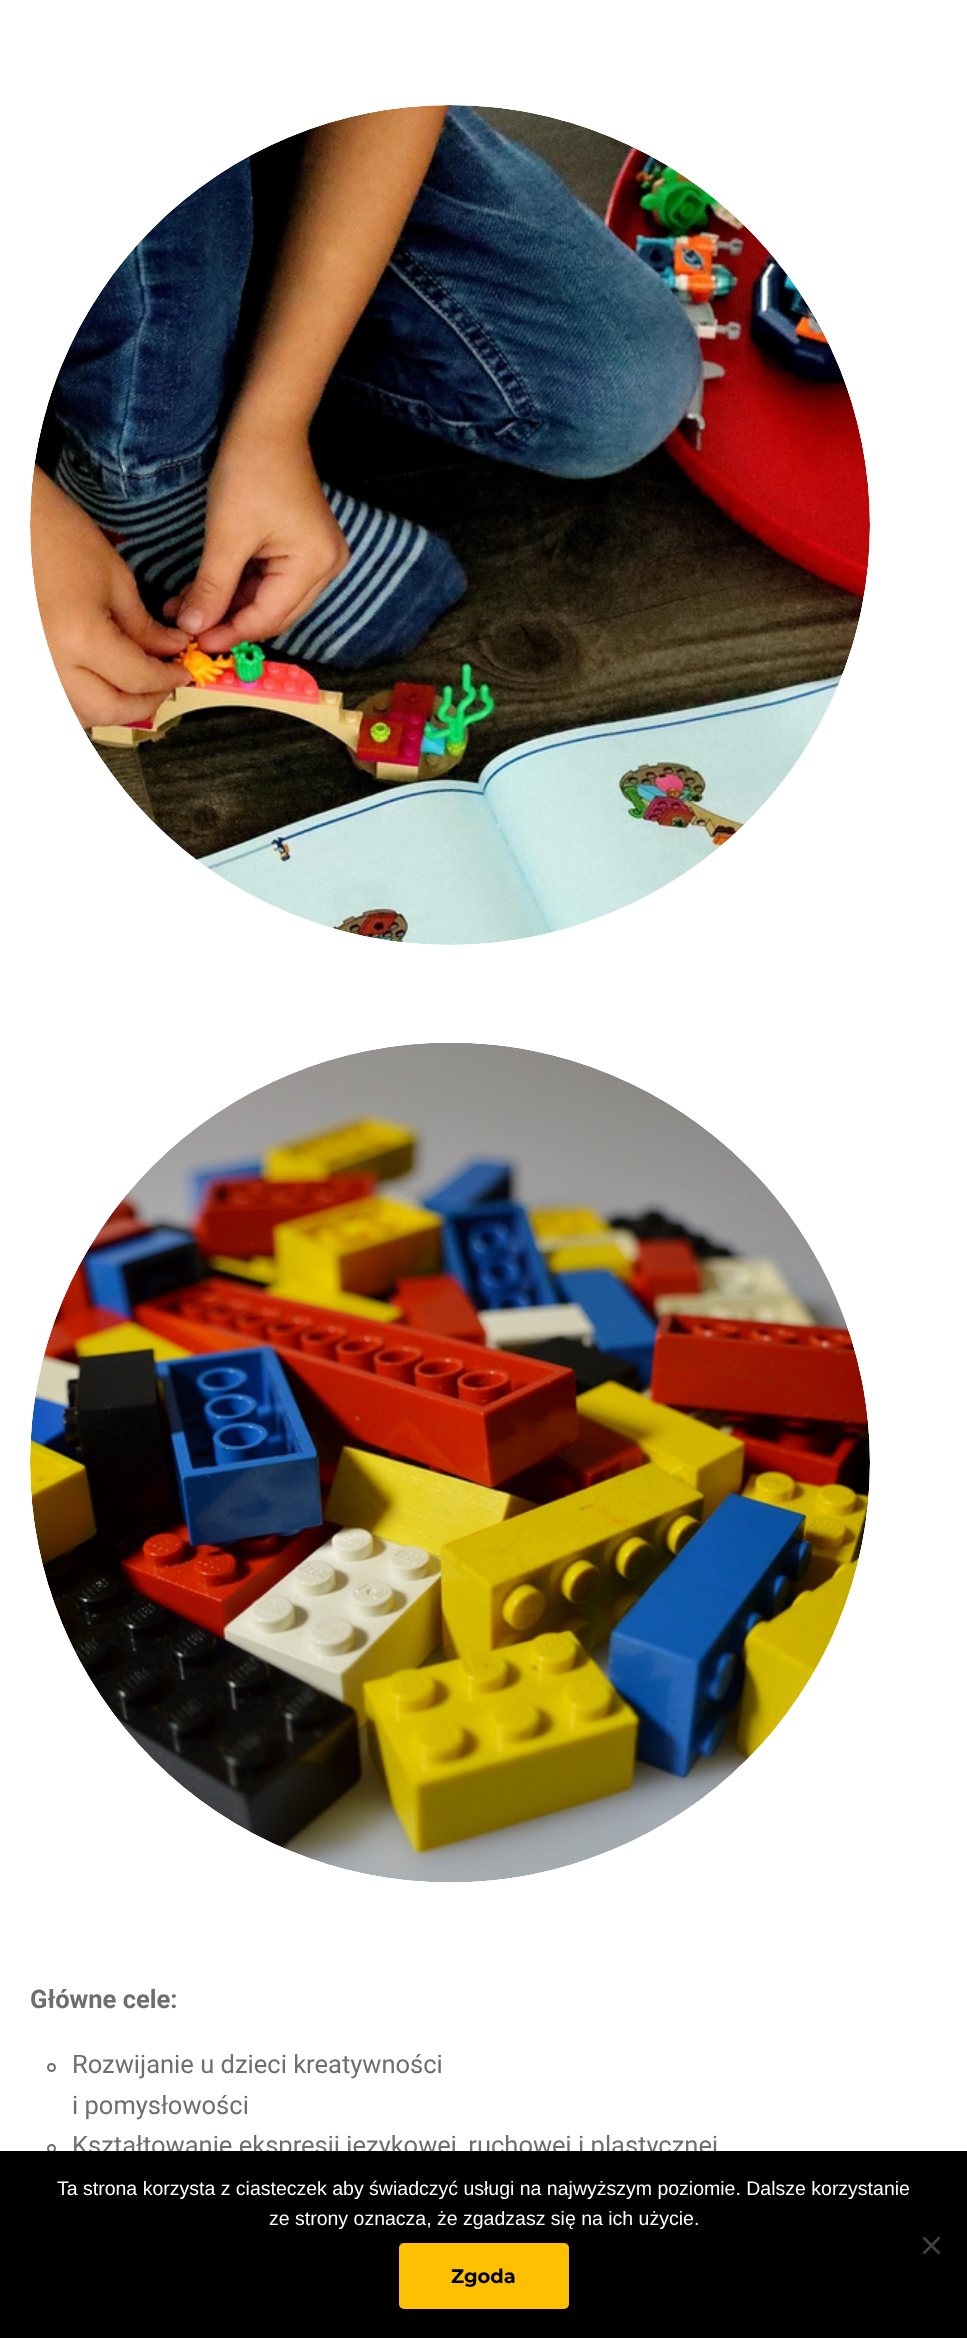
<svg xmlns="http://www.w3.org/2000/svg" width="967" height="2338">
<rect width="100%" height="100%" fill="#fff"/>
<image x="30" y="105" width="840" height="840" href="media/1.png"/>
<image x="30" y="1042" width="840" height="841" href="media/2.png"/>
<text x="30" y="2008" style="font-family:Roboto;font-size:25.5px;font-weight:bold;fill:#6e6e6e">Główne cele:</text>
<circle cx="51.5" cy="2067.5" r="3.5" fill="none" stroke="#6e6e6e" stroke-width="2"/>
<text x="72" y="2073" style="font-family:Roboto;font-size:25.5px;fill:#6e6e6e">Rozwijanie u dzieci kreatywności</text>
<text x="72" y="2114" style="font-family:Roboto;font-size:25.5px;fill:#6e6e6e">i pomysłowości</text>
<circle cx="51.5" cy="2148.5" r="3.5" fill="none" stroke="#6e6e6e" stroke-width="2"/>
<text x="72" y="2154" style="font-family:Roboto;font-size:25.5px;fill:#6e6e6e">Kształtowanie ekspresji językowej, ruchowej i plastycznej</text>
<rect y="2151" width="967" height="187" fill="#000"/>
<text x="57" y="2195" style="font-family:Liberation Sans;font-size:19.5px;fill:#fff">Ta strona korzysta z ciasteczek aby świadczyć usługi na najwyższym poziomie. Dalsze korzystanie</text>
<text x="269" y="2225" style="font-family:Liberation Sans;font-size:19.5px;fill:#fff">ze strony oznacza, że zgadzasz się na ich użycie.</text>
<path d="M938.5 2236.5l2 2l-16 16l-2-2z" fill="#404040"/>
<path d="M922.5 2238.5l2-2l16 16l-2 2z" fill="#404040"/>
<rect x="399" y="2243" width="170" height="66" rx="5" fill="#ffc001"/>
<text x="451" y="2283" style="font-family:Montserrat;font-size:19.5px;font-weight:bold;fill:#000">Zgoda</text>
</svg>
